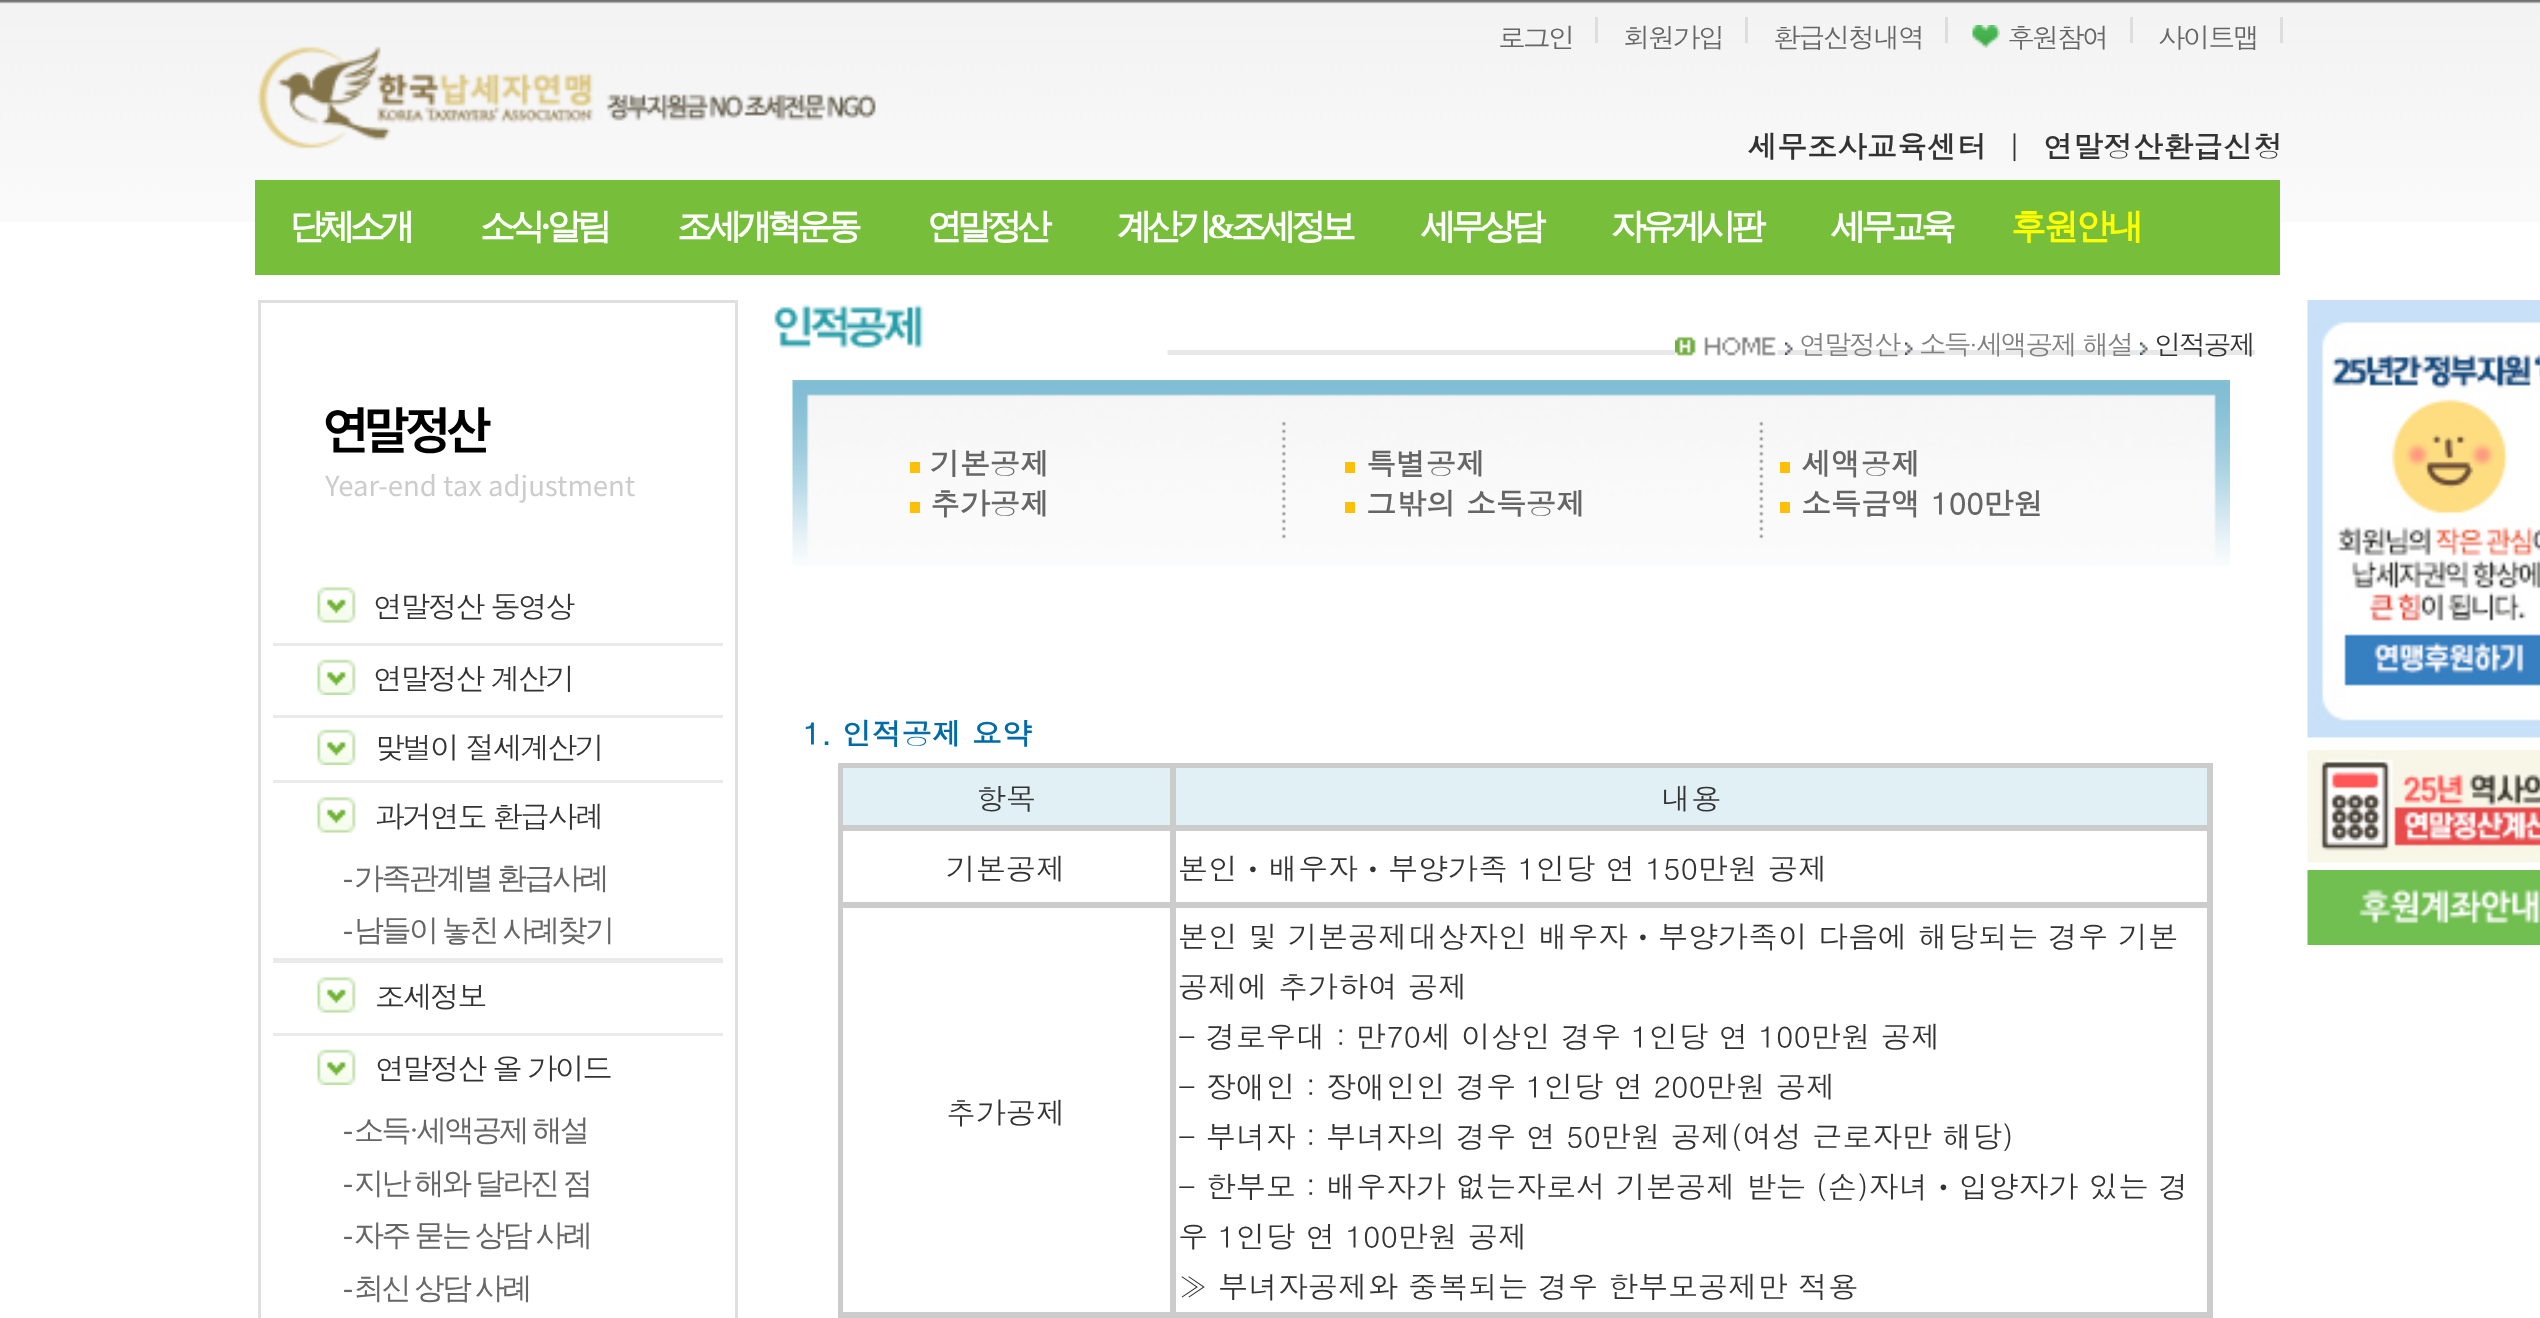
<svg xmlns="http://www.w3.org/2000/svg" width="2540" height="1318">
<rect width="100%" height="100%" fill="#fff"/>
<image x="0" y="0" width="2540" height="222" href="media/1.png"/>
<rect x="1595" y="17" width="3" height="26" fill="#ddd"/>
<text x="1498" y="48" style="font-family:Dotum;font-size:27.5px;letter-spacing:-2.5px;fill:#666">로그인</text>
<rect x="1745" y="17" width="3" height="26" fill="#ddd"/>
<text x="1623" y="48" style="font-family:Dotum;font-size:27.5px;letter-spacing:-2.5px;fill:#666">회원가입</text>
<rect x="1945" y="17" width="3" height="26" fill="#ddd"/>
<text x="1773" y="48" style="font-family:Dotum;font-size:27.5px;letter-spacing:-2.5px;fill:#666">환급신청내역</text>
<rect x="2130" y="17" width="3" height="26" fill="#ddd"/>
<image x="1972" y="25" width="28" height="23" href="media/2.png"/>
<text x="2007" y="48" style="font-family:Dotum;font-size:27.5px;letter-spacing:-2.5px;fill:#666">후원참여</text>
<rect x="2280" y="17" width="3" height="26" fill="#ddd"/>
<text x="2158" y="48" style="font-family:Dotum;font-size:27.5px;letter-spacing:-2.5px;fill:#666">사이트맵</text>
<image x="257" y="46" width="619" height="103" href="media/3.png"/>
<text x="1747" y="158" style="font-family:Dotum;font-size:30px;font-weight:bold;fill:#333">세무조사교육센터</text>
<text x="2007" y="158" style="font-family:Dotum;font-size:30px;fill:#333">|</text>
<text x="2043" y="158" style="font-family:Dotum;font-size:30px;font-weight:bold;fill:#333">연말정산환급신청</text>
<rect x="255" y="180" width="2025" height="95" fill="#77be3b"/>
<text x="290" y="238" style="font-family:WenQuanYi Zen Hei;font-size:35px;font-weight:bold;letter-spacing:-5px;fill:#fff">단체소개</text>
<text x="480" y="238" style="font-family:WenQuanYi Zen Hei;font-size:35px;font-weight:bold;letter-spacing:-5px;fill:#fff">소식</text>
<text x="540" y="238" style="font-family:Liberation Serif;font-size:35px;font-weight:bold;letter-spacing:-5px;fill:#fff">·</text>
<text x="547" y="238" style="font-family:WenQuanYi Zen Hei;font-size:35px;font-weight:bold;letter-spacing:-5px;fill:#fff">알림</text>
<text x="677" y="238" style="font-family:WenQuanYi Zen Hei;font-size:35px;font-weight:bold;letter-spacing:-5px;fill:#fff">조세개혁운동</text>
<text x="927" y="238" style="font-family:WenQuanYi Zen Hei;font-size:35px;font-weight:bold;letter-spacing:-5px;fill:#fff">연말정산</text>
<text x="1117" y="238" style="font-family:WenQuanYi Zen Hei;font-size:35px;font-weight:bold;letter-spacing:-5px;fill:#fff">계산기</text>
<text x="1207" y="238" style="font-family:Liberation Serif;font-size:35px;font-weight:bold;letter-spacing:-5px;fill:#fff">&amp;</text>
<text x="1231" y="238" style="font-family:WenQuanYi Zen Hei;font-size:35px;font-weight:bold;letter-spacing:-5px;fill:#fff">조세정보</text>
<text x="1421" y="238" style="font-family:WenQuanYi Zen Hei;font-size:35px;font-weight:bold;letter-spacing:-5px;fill:#fff">세무상담</text>
<text x="1611" y="238" style="font-family:WenQuanYi Zen Hei;font-size:35px;font-weight:bold;letter-spacing:-5px;fill:#fff">자유게시판</text>
<text x="1831" y="238" style="font-family:WenQuanYi Zen Hei;font-size:35px;font-weight:bold;letter-spacing:-5px;fill:#fff">세무교육</text>
<text x="2011" y="238" style="font-family:WenQuanYi Zen Hei;font-size:35px;font-weight:bold;letter-spacing:-2.5px;fill:#ff0">후원안내</text>
<rect x="259.5" y="301.5" width="477" height="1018" fill="none" stroke="#dfdfdf" stroke-width="3"/>
<text x="323" y="449" style="font-family:Noto Sans KR;font-size:50px;font-weight:600;letter-spacing:-5px;fill:#000">연말정산</text>
<text x="325" y="496" style="font-family:Noto Sans KR;font-size:27.5px;fill:#ccc">Year-end tax adjustment</text>
<image x="317" y="586" width="39" height="37" href="media/4.png"/>
<text x="373" y="618" style="font-family:Dotum;font-size:30px;letter-spacing:-2.5px;fill:#333">연말정산 동영상</text>
<rect x="273" y="643" width="450" height="3" fill="#eaeaea"/>
<image x="317" y="659" width="39" height="36" href="media/5.png"/>
<text x="373" y="690" style="font-family:Dotum;font-size:30px;letter-spacing:-2.5px;fill:#333">연말정산 계산기</text>
<rect x="273" y="715" width="450" height="3" fill="#eaeaea"/>
<image x="317" y="729" width="39" height="36" href="media/5.png"/>
<text x="375" y="759" style="font-family:Dotum;font-size:30px;letter-spacing:-2.5px;fill:#333">맞벌이 절세계산기</text>
<rect x="273" y="780" width="450" height="3" fill="#eaeaea"/>
<image x="317" y="796" width="39" height="37" href="media/6.png"/>
<text x="375" y="828" style="font-family:Dotum;font-size:30px;letter-spacing:-2.5px;fill:#333">과거연도 환급사례</text>
<text x="343" y="888" style="font-family:Liberation Serif;font-size:30px;letter-spacing:-2.5px;fill:#666">-</text>
<text x="354" y="888" word-spacing="-1" style="font-family:WenQuanYi Zen Hei;font-size:30px;font-weight:500;letter-spacing:-2.5px;fill:#666">가족관계별 환급사례</text>
<text x="343" y="940" style="font-family:Liberation Serif;font-size:30px;letter-spacing:-2.5px;fill:#666">-</text>
<text x="354" y="940" word-spacing="-1" style="font-family:WenQuanYi Zen Hei;font-size:30px;font-weight:500;letter-spacing:-2.5px;fill:#666">남들이 놓친 사례찾기</text>
<rect x="273" y="958" width="450" height="5" fill="#eaeaea"/>
<image x="317" y="976" width="39" height="37" href="media/6.png"/>
<text x="375" y="1008" style="font-family:Dotum;font-size:30px;letter-spacing:-2.5px;fill:#333">조세정보</text>
<rect x="273" y="1033" width="450" height="3" fill="#eaeaea"/>
<image x="317" y="1049" width="39" height="36" href="media/5.png"/>
<text x="375" y="1080" style="font-family:Dotum;font-size:30px;letter-spacing:-2.5px;fill:#333">연말정산 올 가이드</text>
<text x="354" y="1140" style="font-family:WenQuanYi Zen Hei;font-size:30px;font-weight:500;letter-spacing:-2.5px;fill:#666">소득</text>
<text x="409" y="1140" style="font-family:Liberation Serif;font-size:30px;letter-spacing:-2.5px;fill:#666">·</text>
<text x="417" y="1140" word-spacing="-1" style="font-family:WenQuanYi Zen Hei;font-size:30px;font-weight:500;letter-spacing:-2.5px;fill:#666">세액공제 해설</text>
<text x="343" y="1140" style="font-family:Liberation Serif;font-size:30px;letter-spacing:-2.5px;fill:#666">-</text>
<text x="343" y="1193" style="font-family:Liberation Serif;font-size:30px;letter-spacing:-2.5px;fill:#666">-</text>
<text x="354" y="1193" word-spacing="-1" style="font-family:WenQuanYi Zen Hei;font-size:30px;font-weight:500;letter-spacing:-2.5px;fill:#666">지난 해와 달라진 점</text>
<text x="343" y="1245" style="font-family:Liberation Serif;font-size:30px;letter-spacing:-2.5px;fill:#666">-</text>
<text x="354" y="1245" word-spacing="-1" style="font-family:WenQuanYi Zen Hei;font-size:30px;font-weight:500;letter-spacing:-2.5px;fill:#666">자주 묻는 상담 사례</text>
<text x="343" y="1298" style="font-family:Liberation Serif;font-size:30px;letter-spacing:-2.5px;fill:#666">-</text>
<text x="354" y="1298" word-spacing="-1" style="font-family:WenQuanYi Zen Hei;font-size:30px;font-weight:500;letter-spacing:-2.5px;fill:#666">최신 상담 사례</text>
<rect x="1166" y="350" width="1089" height="5" fill="#e8e8e8"/>
<image x="768" y="304" width="400" height="51" href="media/7.png"/>
<image x="1675" y="336" width="103" height="20" href="media/8.png"/>
<image x="1785" y="342" width="8" height="13" href="media/9.png"/>
<text x="1799" y="355" style="font-family:Dotum;font-size:27.5px;letter-spacing:-2.5px;fill:#818181">연말정산</text>
<image x="1905" y="342" width="8" height="13" href="media/9.png"/>
<text x="1919" y="355" style="font-family:Dotum;font-size:27.5px;letter-spacing:-2.5px;fill:#818181">소득·세액공제 해설</text>
<image x="2140" y="342" width="8" height="13" href="media/9.png"/>
<text x="2154" y="355" style="font-family:Dotum;font-size:27.5px;letter-spacing:-2.5px;fill:#333">인적공제</text>
<image x="792" y="380" width="1438" height="186" href="media/10.png"/>
<rect x="910" y="462" width="10" height="11" fill="#fcc009"/>
<text x="930" y="475" style="font-family:Dotum;font-size:30px;font-weight:bold;fill:#666">기본공제</text>
<rect x="910" y="502" width="10" height="11" fill="#fcc009"/>
<text x="930" y="515" style="font-family:Dotum;font-size:30px;font-weight:bold;fill:#666">추가공제</text>
<rect x="1345" y="462" width="10" height="11" fill="#fcc009"/>
<text x="1366" y="475" style="font-family:Dotum;font-size:30px;font-weight:bold;fill:#666">특별공제</text>
<rect x="1345" y="502" width="10" height="11" fill="#fcc009"/>
<text x="1366" y="515" style="font-family:Dotum;font-size:30px;font-weight:bold;fill:#666">그밖의 소득공제</text>
<rect x="1780" y="462" width="10" height="11" fill="#fcc009"/>
<text x="1801" y="475" style="font-family:Dotum;font-size:30px;font-weight:bold;fill:#666">세액공제</text>
<rect x="1780" y="502" width="10" height="11" fill="#fcc009"/>
<text x="1801" y="515" style="font-family:Dotum;font-size:30px;font-weight:bold;fill:#666">소득금액 100만원</text>
<text x="803" y="745" style="font-family:Dotum;font-size:30px;font-weight:bold;fill:#006ba8">1. 인적공제 요약</text>
<rect x="839.5" y="764.5" width="1372" height="552" fill="none" stroke="#ccc" stroke-width="3"/>
<rect x="841.5" y="766.5" width="330" height="60" fill="#e1f0f5" stroke="#ccc" stroke-width="3"/>
<text x="976" y="810" style="font-family:Dotum;font-size:30px;fill:#333">항목</text>
<rect x="1174.5" y="766.5" width="1034" height="60" fill="#e1f0f5" stroke="#ccc" stroke-width="3"/>
<text x="1661" y="810" style="font-family:Dotum;font-size:30px;fill:#333">내용</text>
<rect x="841.5" y="829.5" width="330" height="74" fill="none" stroke="#ccc" stroke-width="3"/>
<text x="946" y="880" style="font-family:Dotum;font-size:30px;fill:#333">기본공제</text>
<rect x="1174.5" y="829.5" width="1034" height="74" fill="none" stroke="#ccc" stroke-width="3"/>
<text x="1178" y="880" style="font-family:Dotum;font-size:30px;fill:#333">본인ㆍ배우자ㆍ부양가족 1인당 연 150만원 공제</text>
<rect x="841.5" y="906.5" width="330" height="407" fill="none" stroke="#ccc" stroke-width="3"/>
<text x="946" y="1124" style="font-family:Dotum;font-size:30px;fill:#333">추가공제</text>
<rect x="1174.5" y="906.5" width="1034" height="407" fill="none" stroke="#ccc" stroke-width="3"/>
<text x="1178" y="948" style="font-family:Dotum;font-size:30px;fill:#333">본인 및 기본공제대상자인 배우자ㆍ부양가족이 다음에 해당되는 경우 기본</text>
<text x="1178" y="998" style="font-family:Dotum;font-size:30px;fill:#333">공제에 추가하여 공제</text>
<text x="1178" y="1048" style="font-family:Dotum;font-size:30px;fill:#333">- 경로우대 : 만70세 이상인 경우 1인당 연 100만원 공제</text>
<text x="1178" y="1098" style="font-family:Dotum;font-size:30px;fill:#333">- 장애인 : 장애인인 경우 1인당 연 200만원 공제</text>
<text x="1178" y="1148" style="font-family:Dotum;font-size:30px;fill:#333">- 부녀자 : 부녀자의 경우 연 50만원 공제(여성 근로자만 해당)</text>
<text x="1178" y="1198" style="font-family:Dotum;font-size:30px;fill:#333">- 한부모 : 배우자가 없는자로서 기본공제 받는 (손)자녀ㆍ입양자가 있는 경</text>
<text x="1178" y="1248" style="font-family:Dotum;font-size:30px;fill:#333">우 1인당 연 100만원 공제</text>
<text x="1178" y="1298" style="font-family:Dotum;font-size:30px;fill:#333">≫ 부녀자공제와 중복되는 경우 한부모공제만 적용</text>
<image x="2307" y="300" width="233" height="438" href="media/11.png"/>
<image x="2307" y="750" width="233" height="113" href="media/12.png"/>
<image x="2307" y="870" width="233" height="75" href="media/13.png"/>
</svg>
